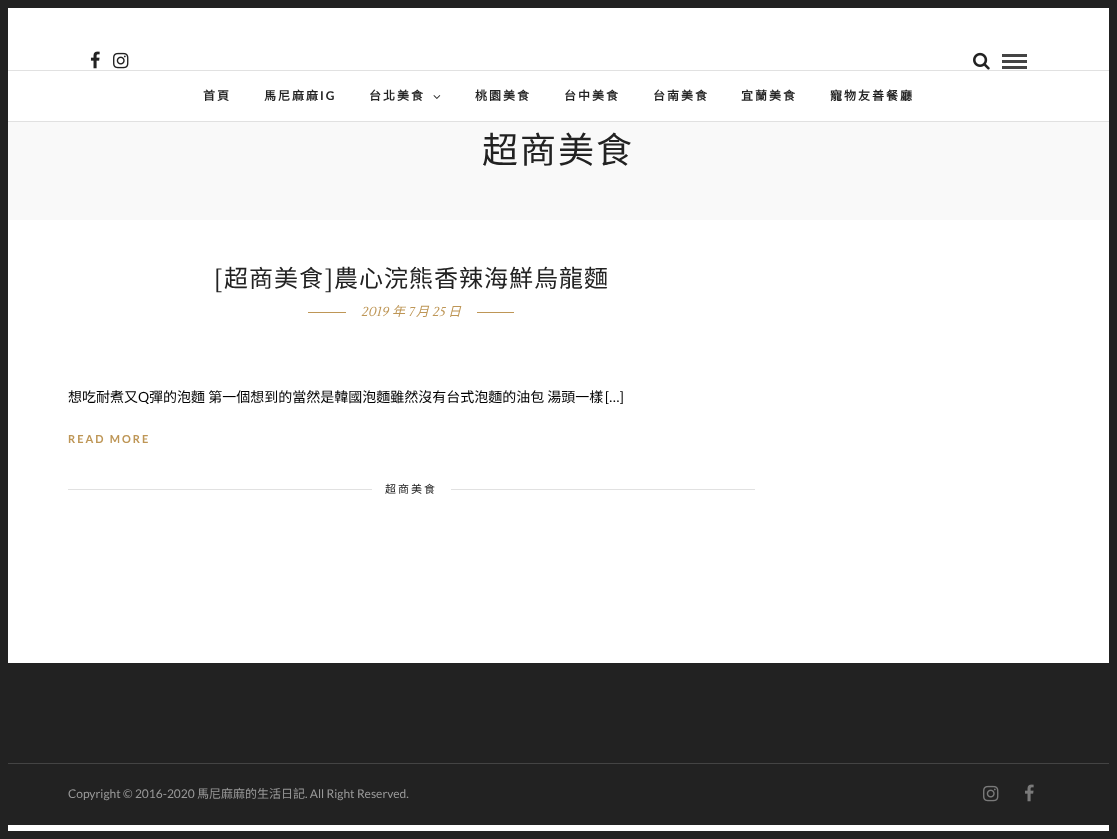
<svg xmlns="http://www.w3.org/2000/svg" width="1117" height="839">
<rect width="100%" height="100%" fill="#fff"/>
<rect width="1117" height="8" fill="#222"/>
<rect y="121" width="1117" height="1" fill="#e1e1e1"/>
<rect y="70" width="1117" height="1" fill="#e1e1e1"/>
<rect y="831" width="1117" height="8" fill="#222"/>
<rect width="8" height="839" fill="#222"/>
<image x="90" y="51" width="10" height="18" href="media/1.png"/>
<image x="113" y="52" width="16" height="17" href="media/2.png"/>
<image x="973" y="52" width="17" height="18" href="media/3.png"/>
<rect x="1002" y="54" width="25" height="3" fill="#444"/>
<rect x="1002" y="60" width="25" height="3" fill="#444"/>
<rect x="1002" y="66" width="25" height="3" fill="#444"/>
<text x="203" y="100" style="font-family:Noto Sans CJK TC;font-size:12px;font-weight:bold;letter-spacing:2px;fill:#222">首頁</text>
<text x="264" y="100" style="font-family:Noto Sans CJK TC;font-size:12px;font-weight:bold;letter-spacing:2px;fill:#222">馬尼麻麻</text>
<text x="320" y="100" style="font-family:Lato;font-size:12px;font-weight:bold;letter-spacing:2px;fill:#222">IG</text>
<text x="369" y="100" style="font-family:Noto Sans CJK TC;font-size:12px;font-weight:bold;letter-spacing:2px;fill:#222">台北美食</text>
<image x="433" y="95" width="8" height="4" href="media/4.png"/>
<text x="475" y="100" style="font-family:Noto Sans CJK TC;font-size:12px;font-weight:bold;letter-spacing:2px;fill:#222">桃園美食</text>
<text x="564" y="100" style="font-family:Noto Sans CJK TC;font-size:12px;font-weight:bold;letter-spacing:2px;fill:#222">台中美食</text>
<text x="653" y="100" style="font-family:Noto Sans CJK TC;font-size:12px;font-weight:bold;letter-spacing:2px;fill:#222">台南美食</text>
<text x="741" y="100" style="font-family:Noto Sans CJK TC;font-size:12px;font-weight:bold;letter-spacing:2px;fill:#222">宜蘭美食</text>
<text x="830" y="100" style="font-family:Noto Sans CJK TC;font-size:12px;font-weight:bold;letter-spacing:2px;fill:#222">寵物友善餐廳</text>
<rect x="8" y="122" width="1101" height="98" fill="#f9f9f9"/>
<text x="482" y="163" style="font-family:Noto Sans CJK TC;font-size:36px;letter-spacing:2px;fill:#222">超商美食</text>
<text x="214" y="287" style="font-family:Lustria;font-size:24px;letter-spacing:1px;fill:#222">[</text>
<text x="224" y="287" style="font-family:Noto Sans CJK TC;font-size:24px;letter-spacing:1px;fill:#222">超商美食</text>
<text x="324" y="287" style="font-family:Lustria;font-size:24px;letter-spacing:1px;fill:#222">]</text>
<text x="334" y="287" style="font-family:Noto Sans CJK TC;font-size:24px;letter-spacing:1px;fill:#222">農心浣熊香辣海鮮烏龍麵</text>
<rect x="308" y="312" width="206" height="1" fill="#be9656"/>
<rect x="346" y="312" width="131" height="1" fill="#fff"/>
<text x="361" y="316" style="font-family:Lustria;font-size:13px;font-style:italic;fill:#be9656">2019</text>
<text x="392" y="316" style="font-family:Noto Sans CJK TC;font-size:13px;font-style:italic;fill:#be9656">年</text>
<text x="408" y="316" style="font-family:Lustria;font-size:13px;font-style:italic;fill:#be9656">7</text>
<text x="416" y="316" style="font-family:Noto Sans CJK TC;font-size:13px;font-style:italic;fill:#be9656">月</text>
<text x="432" y="316" style="font-family:Lustria;font-size:13px;font-style:italic;fill:#be9656">25</text>
<text x="448" y="316" style="font-family:Noto Sans CJK TC;font-size:13px;font-style:italic;fill:#be9656">日</text>
<text x="68" y="402" style="font-family:Noto Sans CJK TC;font-size:14px;fill:#000">想吃耐煮又</text>
<text x="138" y="402" style="font-family:Lato;font-size:14px;fill:#000">Q</text>
<text x="149" y="402" style="font-family:Noto Sans CJK TC;font-size:14px;fill:#000">彈的泡麵 第一個想到的當然是韓國泡麵雖然沒有台式泡麵的油包 湯頭一樣</text>
<text x="605" y="402" style="font-family:Lato;font-size:14px;fill:#000">[…]</text>
<text x="68" y="443" style="font-family:Lato;font-size:11px;font-weight:bold;letter-spacing:2px;fill:#be9656">READ MORE</text>
<rect x="68" y="489" width="687" height="1" fill="#e1e1e1"/>
<rect x="372" y="489" width="79" height="1" fill="#fff"/>
<text x="385" y="493" style="font-family:Noto Sans CJK TC;font-size:11px;letter-spacing:2px;fill:#222">超商美食</text>
<rect x="8" y="663" width="1101" height="162" fill="#222"/>
<rect x="8" y="763" width="1101" height="1" fill="#444"/>
<text x="68" y="798" style="font-family:Lato;font-size:12px;fill:#999">Copyright © 2016-2020</text>
<text x="197" y="798" style="font-family:Noto Sans CJK TC;font-size:12px;fill:#999">馬尼麻麻的生活日記</text>
<text x="305" y="798" style="font-family:Lato;font-size:12px;fill:#999">. All Right Reserved.</text>
<image x="983" y="785" width="16" height="17" href="media/5.png"/>
<image x="1025" y="784" width="9" height="18" href="media/6.png"/>
<rect x="1109" width="8" height="839" fill="#222"/>
</svg>
